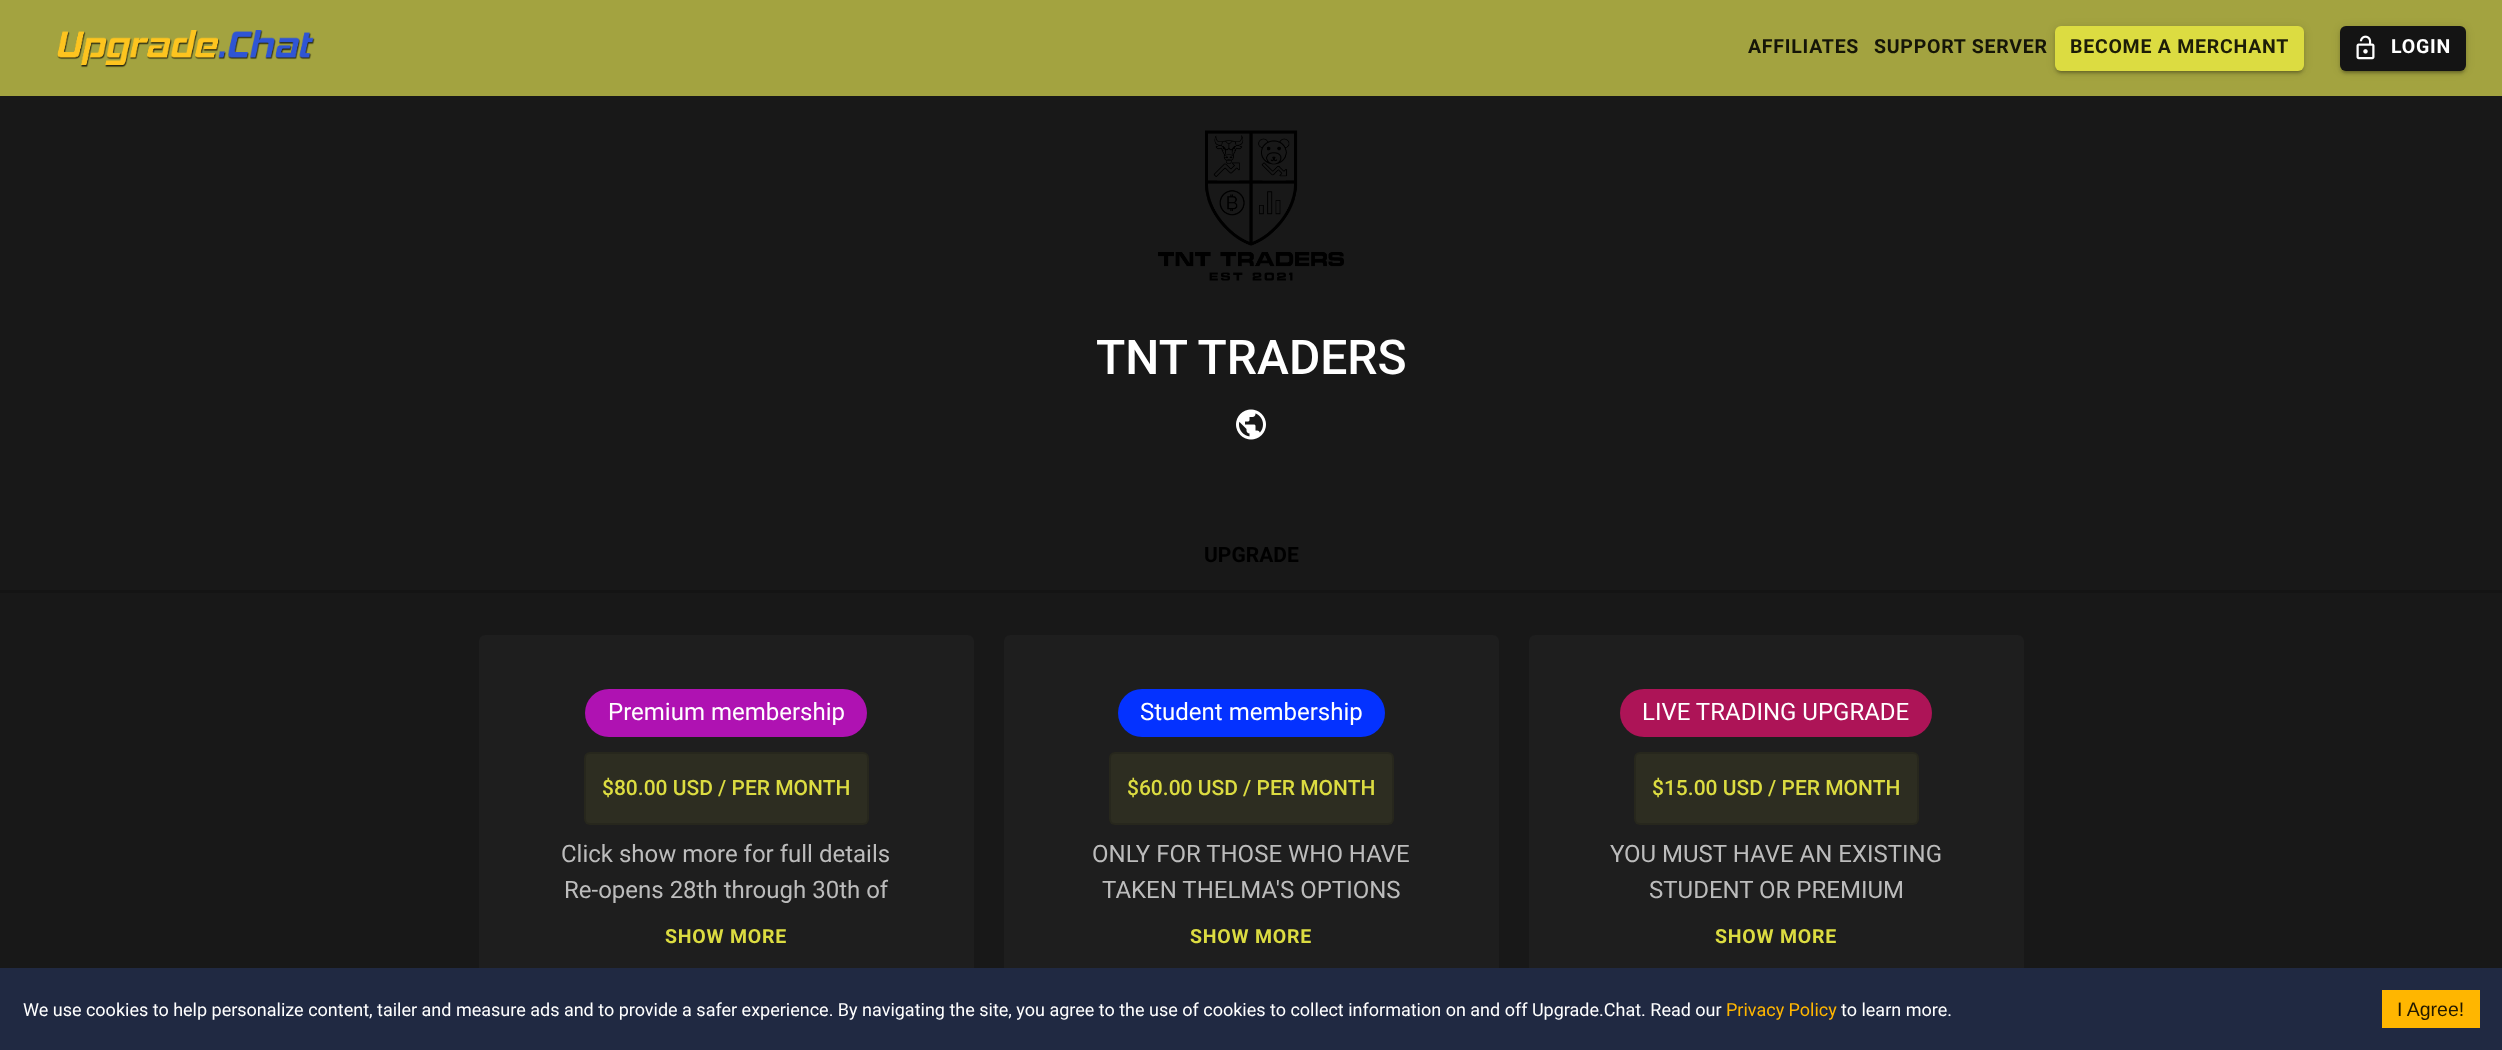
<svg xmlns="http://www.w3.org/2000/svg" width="2502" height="1050">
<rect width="100%" height="100%" fill="#181818"/>
<rect width="2502" height="96" fill="#a3a340"/>
<image x="57" y="30" width="258" height="38" href="media/1.png"/>
<text x="1748" y="53" style="font-family:Roboto;font-size:19.5px;font-weight:bold;letter-spacing:0.75px;fill:#151508">AFFILIATES</text>
<text x="1874" y="53" style="font-family:Roboto;font-size:19.5px;font-weight:bold;letter-spacing:0.75px;fill:#151508">SUPPORT SERVER</text>
<rect x="2055" y="27" width="249" height="45" rx="6" fill="#0000001f" filter="blur(4px)"/>
<rect x="2055" y="29" width="249" height="45" rx="6" fill="#00000024" filter="blur(1.5px)"/>
<rect x="2058" y="33" width="243" height="39" rx="3" fill="#00000033" filter="blur(1px)"/>
<rect x="2055" y="26" width="249" height="45" rx="6" fill="#dcdc41"/>
<text x="2070" y="53" style="font-family:Roboto;font-size:19.5px;font-weight:bold;letter-spacing:0.75px;fill:#1d1d08">BECOME A MERCHANT</text>
<rect x="2340" y="27" width="126" height="45" rx="6" fill="#0000001f" filter="blur(4px)"/>
<rect x="2340" y="29" width="126" height="45" rx="6" fill="#00000024" filter="blur(1.5px)"/>
<rect x="2343" y="33" width="120" height="39" rx="3" fill="#00000033" filter="blur(1px)"/>
<rect x="2340" y="26" width="126" height="45" rx="6" fill="#141414"/>
<image x="2356" y="35" width="19" height="25" href="media/2.png"/>
<text x="2391" y="53" style="font-family:Roboto;font-size:19.5px;font-weight:bold;letter-spacing:0.75px;fill:#fff">LOGIN</text>
<image x="1158" y="130" width="186" height="151" href="media/3.png"/>
<text x="1096" y="374" style="font-family:Roboto;font-size:48px;font-weight:500;fill:#fff">TNT TRADERS</text>
<image x="1236" y="409" width="30" height="31" href="media/4.png"/>
<text x="1204" y="562" style="font-family:Roboto;font-size:21px;font-weight:bold;fill:#000">UPGRADE</text>
<rect y="590" width="2502" height="3" fill="#141414"/>
<rect x="479" y="635" width="495" height="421" rx="6" fill="#1e1e1e"/>
<rect x="585" y="689" width="282" height="48" rx="24" fill="#af12b2"/>
<text x="608" y="720" style="font-family:Roboto;font-size:24px;fill:#fff">Premium membership</text>
<rect x="584" y="752" width="285" height="73" rx="6" fill="#2d2d21"/>
<rect x="585" y="753" width="283" height="71" rx="5" fill="none" stroke="#0000001f" stroke-width="2"/>
<text x="602" y="795" style="font-family:Roboto;font-size:21px;font-weight:500;fill:#dcdc41">$80.00 USD / PER MONTH</text>
<text x="561" y="862" style="font-family:Roboto;font-size:24px;fill:#bcbcbc">Click show more for full details</text>
<text x="564" y="898" style="font-family:Roboto;font-size:24px;fill:#bcbcbc">Re-opens 28th through 30th of</text>
<text x="665" y="943" style="font-family:Roboto;font-size:19.5px;font-weight:bold;letter-spacing:0.75px;fill:#dcdc41">SHOW MORE</text>
<rect x="1004" y="635" width="495" height="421" rx="6" fill="#1e1e1e"/>
<rect x="1118" y="689" width="267" height="48" rx="24" fill="#0432ff"/>
<text x="1140" y="720" style="font-family:Roboto;font-size:24px;fill:#fff">Student membership</text>
<rect x="1109" y="752" width="285" height="73" rx="6" fill="#2d2d21"/>
<rect x="1110" y="753" width="283" height="71" rx="5" fill="none" stroke="#0000001f" stroke-width="2"/>
<text x="1127" y="795" style="font-family:Roboto;font-size:21px;font-weight:500;fill:#dcdc41">$60.00 USD / PER MONTH</text>
<text x="1092" y="862" style="font-family:Roboto;font-size:24px;fill:#bcbcbc">ONLY FOR THOSE WHO HAVE</text>
<text x="1102" y="898" style="font-family:Roboto;font-size:24px;fill:#bcbcbc">TAKEN THELMA'S OPTIONS</text>
<text x="1190" y="943" style="font-family:Roboto;font-size:19.5px;font-weight:bold;letter-spacing:0.75px;fill:#dcdc41">SHOW MORE</text>
<rect x="1529" y="635" width="495" height="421" rx="6" fill="#1e1e1e"/>
<rect x="1620" y="689" width="312" height="48" rx="24" fill="#ad1457"/>
<text x="1642" y="720" style="font-family:Roboto;font-size:24px;fill:#fff">LIVE TRADING UPGRADE</text>
<rect x="1634" y="752" width="285" height="73" rx="6" fill="#2d2d21"/>
<rect x="1635" y="753" width="283" height="71" rx="5" fill="none" stroke="#0000001f" stroke-width="2"/>
<text x="1652" y="795" style="font-family:Roboto;font-size:21px;font-weight:500;fill:#dcdc41">$15.00 USD / PER MONTH</text>
<text x="1610" y="862" style="font-family:Roboto;font-size:24px;fill:#bcbcbc">YOU MUST HAVE AN EXISTING</text>
<text x="1649" y="898" style="font-family:Roboto;font-size:24px;fill:#bcbcbc">STUDENT OR PREMIUM</text>
<text x="1715" y="943" style="font-family:Roboto;font-size:19.5px;font-weight:bold;letter-spacing:0.75px;fill:#dcdc41">SHOW MORE</text>
<rect y="968" width="2502" height="82" fill="#202942"/>
<text x="23" y="1016" style="font-family:Roboto;font-size:18px;fill:#fff">We use cookies to help personalize content, tailer and measure ads and to provide a safer experience. By navigating the site, you agree to the use of cookies to collect information on and off Upgrade.Chat. Read our</text>
<text x="1726" y="1016" style="font-family:Roboto;font-size:18px;fill:#ffb600">Privacy Policy</text>
<text x="1841" y="1016" style="font-family:Roboto;font-size:18px;fill:#fff">to learn more.</text>
<rect x="2382" y="990" width="98" height="38" fill="#ffb600"/>
<text x="2397" y="1016" style="font-family:Liberation Sans;font-size:19.5px;fill:#211800">I Agree!</text>
</svg>
